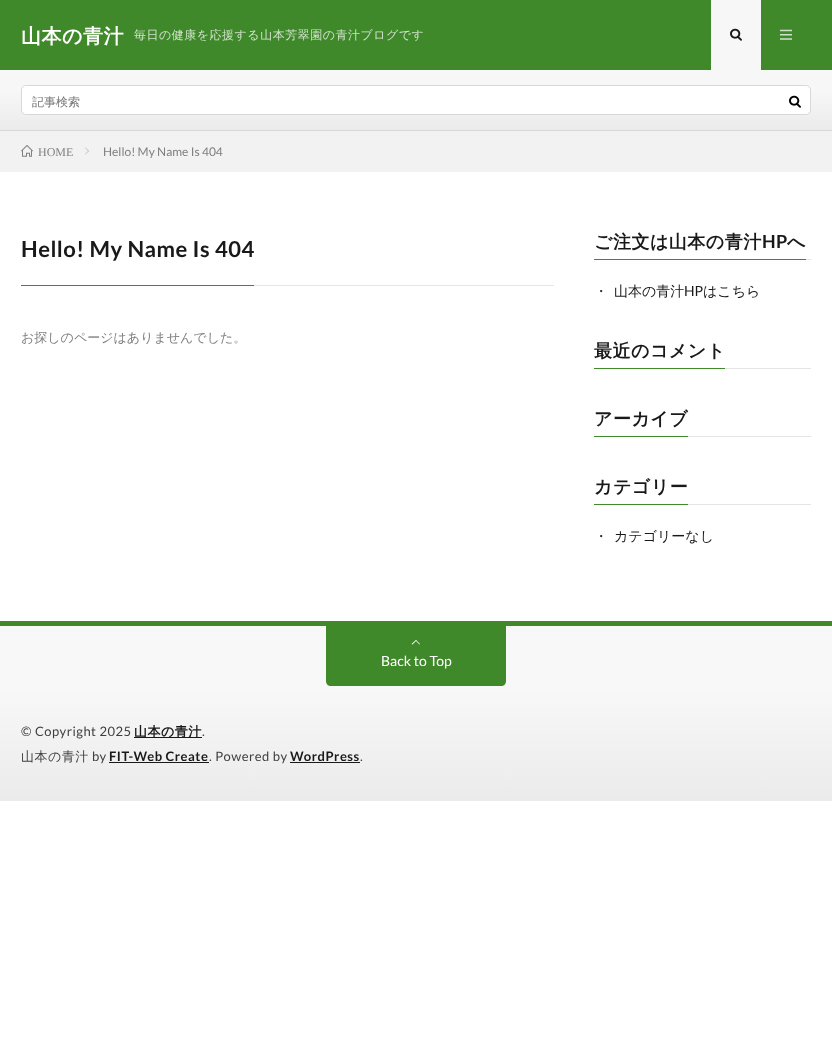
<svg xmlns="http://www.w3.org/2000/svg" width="832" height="1063">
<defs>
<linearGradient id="g1" gradientUnits="userSpaceOnUse" x1="416" y1="70" x2="416" y2="130"><stop offset="0" stop-color="#f7f7f7"/><stop offset="0.35" stop-color="#f7f7f7"/><stop offset="1" stop-color="#ebebeb"/></linearGradient>
<linearGradient id="g2" gradientUnits="userSpaceOnUse" x1="416" y1="626" x2="416" y2="801"><stop offset="0" stop-color="#f8f8f8"/><stop offset="0.35" stop-color="#f8f8f8"/><stop offset="1" stop-color="#ebebeb"/></linearGradient>
</defs>
<rect width="100%" height="100%" fill="#fff"/>
<rect width="832" height="70" fill="#3f892a"/>
<text x="21" y="43" style="font-family:WenQuanYi Zen Hei;font-size:20px;font-weight:bold;letter-spacing:0.5px;fill:#fff">山本の青汁</text>
<text x="134" y="39" style="font-family:WenQuanYi Zen Hei;font-size:12px;font-weight:500;letter-spacing:0.5px;fill:#cfe2ca">毎日の健康を応援する山本芳翠園の青汁ブログです</text>
<rect x="711" width="50" height="70" fill="#f7f7f7"/>
<image x="730" y="28" width="12" height="13" href="media/1.png"/>
<image x="780" y="29" width="12" height="11" href="media/2.png"/>
<rect y="130" width="832" height="1" fill="#d8d8d8"/>
<rect y="70" width="832" height="60" fill="url(#g1)"/>
<rect x="21.5" y="85.5" width="789" height="29" rx="4.5" fill="#fff" stroke="#d8d8d8"/>
<text x="32" y="106" style="font-family:WenQuanYi Zen Hei;font-size:12px;font-weight:500;fill:#757575">記事検索</text>
<image x="789" y="95" width="12" height="13" href="media/3.png"/>
<rect y="131" width="832" height="41" fill="#f2f2f2"/>
<image x="21" y="145" width="12" height="12" href="media/4.png"/>
<text x="38" y="156" style="font-family:Liberation Serif;font-size:12px;fill:#7f7f7f">HOME</text>
<path d="M85.5 147.5l3.5 3.5l-.5 .5l-3.5-3.5z" fill="#bfbfbf"/>
<path d="M88.5 150.5l.5 .5l-3.5 3.5l-.5-.5z" fill="#bfbfbf"/>
<text x="103" y="156" style="font-family:Lato;font-size:12px;fill:#7f7f7f">Hello! My Name Is 404</text>
<rect x="21" y="285" width="233" height="1" fill="#3f892a"/>
<text x="21" y="257" style="font-family:Lato;font-size:22px;font-weight:bold;letter-spacing:0.5px;fill:#191919">Hello! My Name Is 404</text>
<rect x="254" y="285" width="300" height="1" fill="#e5e5e5"/>
<text x="21" y="342" style="font-family:WenQuanYi Zen Hei;font-size:13px;font-weight:500;fill:#7f7f7f">お探しのページはありませんでした。</text>
<text x="594" y="248" style="font-family:WenQuanYi Zen Hei;font-size:18px;font-weight:bold;letter-spacing:0.5px;fill:#191919">ご注文は山本の青汁</text>
<text x="762" y="248" style="font-family:Lato;font-size:18px;font-weight:bold;letter-spacing:0.5px;fill:#191919">HP</text>
<text x="787" y="248" style="font-family:WenQuanYi Zen Hei;font-size:18px;font-weight:bold;letter-spacing:0.5px;fill:#191919">へ</text>
<rect x="594" y="259" width="217" height="1" fill="#3f892a"/>
<rect x="806" y="259" width="5" height="1" fill="#e5e5e5"/>
<text x="594" y="296" style="font-family:WenQuanYi Zen Hei;font-size:14px;font-weight:500;fill:#191919">・</text>
<text x="614" y="296" style="font-family:WenQuanYi Zen Hei;font-size:14px;font-weight:500;fill:#191919">山本の青汁</text>
<text x="684" y="296" style="font-family:Lato;font-size:14px;fill:#191919">HP</text>
<text x="703" y="296" style="font-family:WenQuanYi Zen Hei;font-size:14px;font-weight:500;fill:#191919">はこちら</text>
<text x="594" y="357" style="font-family:WenQuanYi Zen Hei;font-size:18px;font-weight:bold;letter-spacing:0.5px;fill:#191919">最近のコメント</text>
<rect x="594" y="368" width="131" height="1" fill="#3f892a"/>
<rect x="725" y="368" width="86" height="1" fill="#e5e5e5"/>
<text x="594" y="425" style="font-family:WenQuanYi Zen Hei;font-size:18px;font-weight:bold;letter-spacing:0.5px;fill:#191919">アーカイブ</text>
<rect x="594" y="436" width="94" height="1" fill="#3f892a"/>
<rect x="688" y="436" width="123" height="1" fill="#e5e5e5"/>
<text x="594" y="493" style="font-family:WenQuanYi Zen Hei;font-size:18px;font-weight:bold;letter-spacing:0.5px;fill:#191919">カテゴリー</text>
<rect x="594" y="504" width="94" height="1" fill="#3f892a"/>
<rect x="688" y="504" width="123" height="1" fill="#e5e5e5"/>
<text x="594" y="541" style="font-family:WenQuanYi Zen Hei;font-size:14px;font-weight:500;fill:#191919">・</text>
<text x="614" y="541" style="font-family:WenQuanYi Zen Hei;font-size:14px;font-weight:500;fill:#191919">カテゴリーなし</text>
<rect y="621" width="832" height="5" fill="#3f892a"/>
<rect y="626" width="832" height="175" fill="url(#g2)"/>
<path d="M326 626h180v55c0 3-2 5-5 5h-170c-3 0-5-2-5-5z" fill="#3f892a"/>
<path d="M416 640l4 4l-.5 .5l-4-4z" fill="#fff"/>
<path d="M416 640l.5 .5l-4 4l-1-.5z" fill="#fff"/>
<text x="381" y="666" style="font-family:Lato;font-size:14px;fill:#fff">Back to Top</text>
<text x="21" y="736" style="font-family:Lato;font-size:13px;letter-spacing:0.5px;fill:#3f3f3f">© Copyright 2025</text>
<rect x="134" y="737" width="68" height="1" fill="#191919"/>
<text x="134" y="736" style="font-family:WenQuanYi Zen Hei;font-size:13px;font-weight:bold;letter-spacing:0.5px;fill:#191919">山本の青汁</text>
<text x="202" y="736" style="font-family:Lato;font-size:13px;letter-spacing:0.5px;fill:#3f3f3f">.</text>
<text x="21" y="761" style="font-family:WenQuanYi Zen Hei;font-size:13px;font-weight:500;letter-spacing:0.5px;fill:#3f3f3f">山本の青汁</text>
<text x="92" y="761" style="font-family:Lato;font-size:13px;letter-spacing:0.5px;fill:#3f3f3f">by</text>
<text x="109" y="761" style="font-family:Lato;font-size:13px;font-weight:bold;letter-spacing:0.5px;fill:#191919">FIT-Web Create</text>
<rect x="109" y="762" width="100" height="1" fill="#191919"/>
<text x="209" y="761" style="font-family:Lato;font-size:13px;letter-spacing:0.5px;fill:#3f3f3f">. Powered by</text>
<text x="290" y="761" style="font-family:Lato;font-size:13px;font-weight:bold;letter-spacing:0.5px;fill:#191919">WordPress</text>
<rect x="290" y="762" width="70" height="1" fill="#191919"/>
<text x="360" y="761" style="font-family:Lato;font-size:13px;letter-spacing:0.5px;fill:#3f3f3f">.</text>
</svg>
